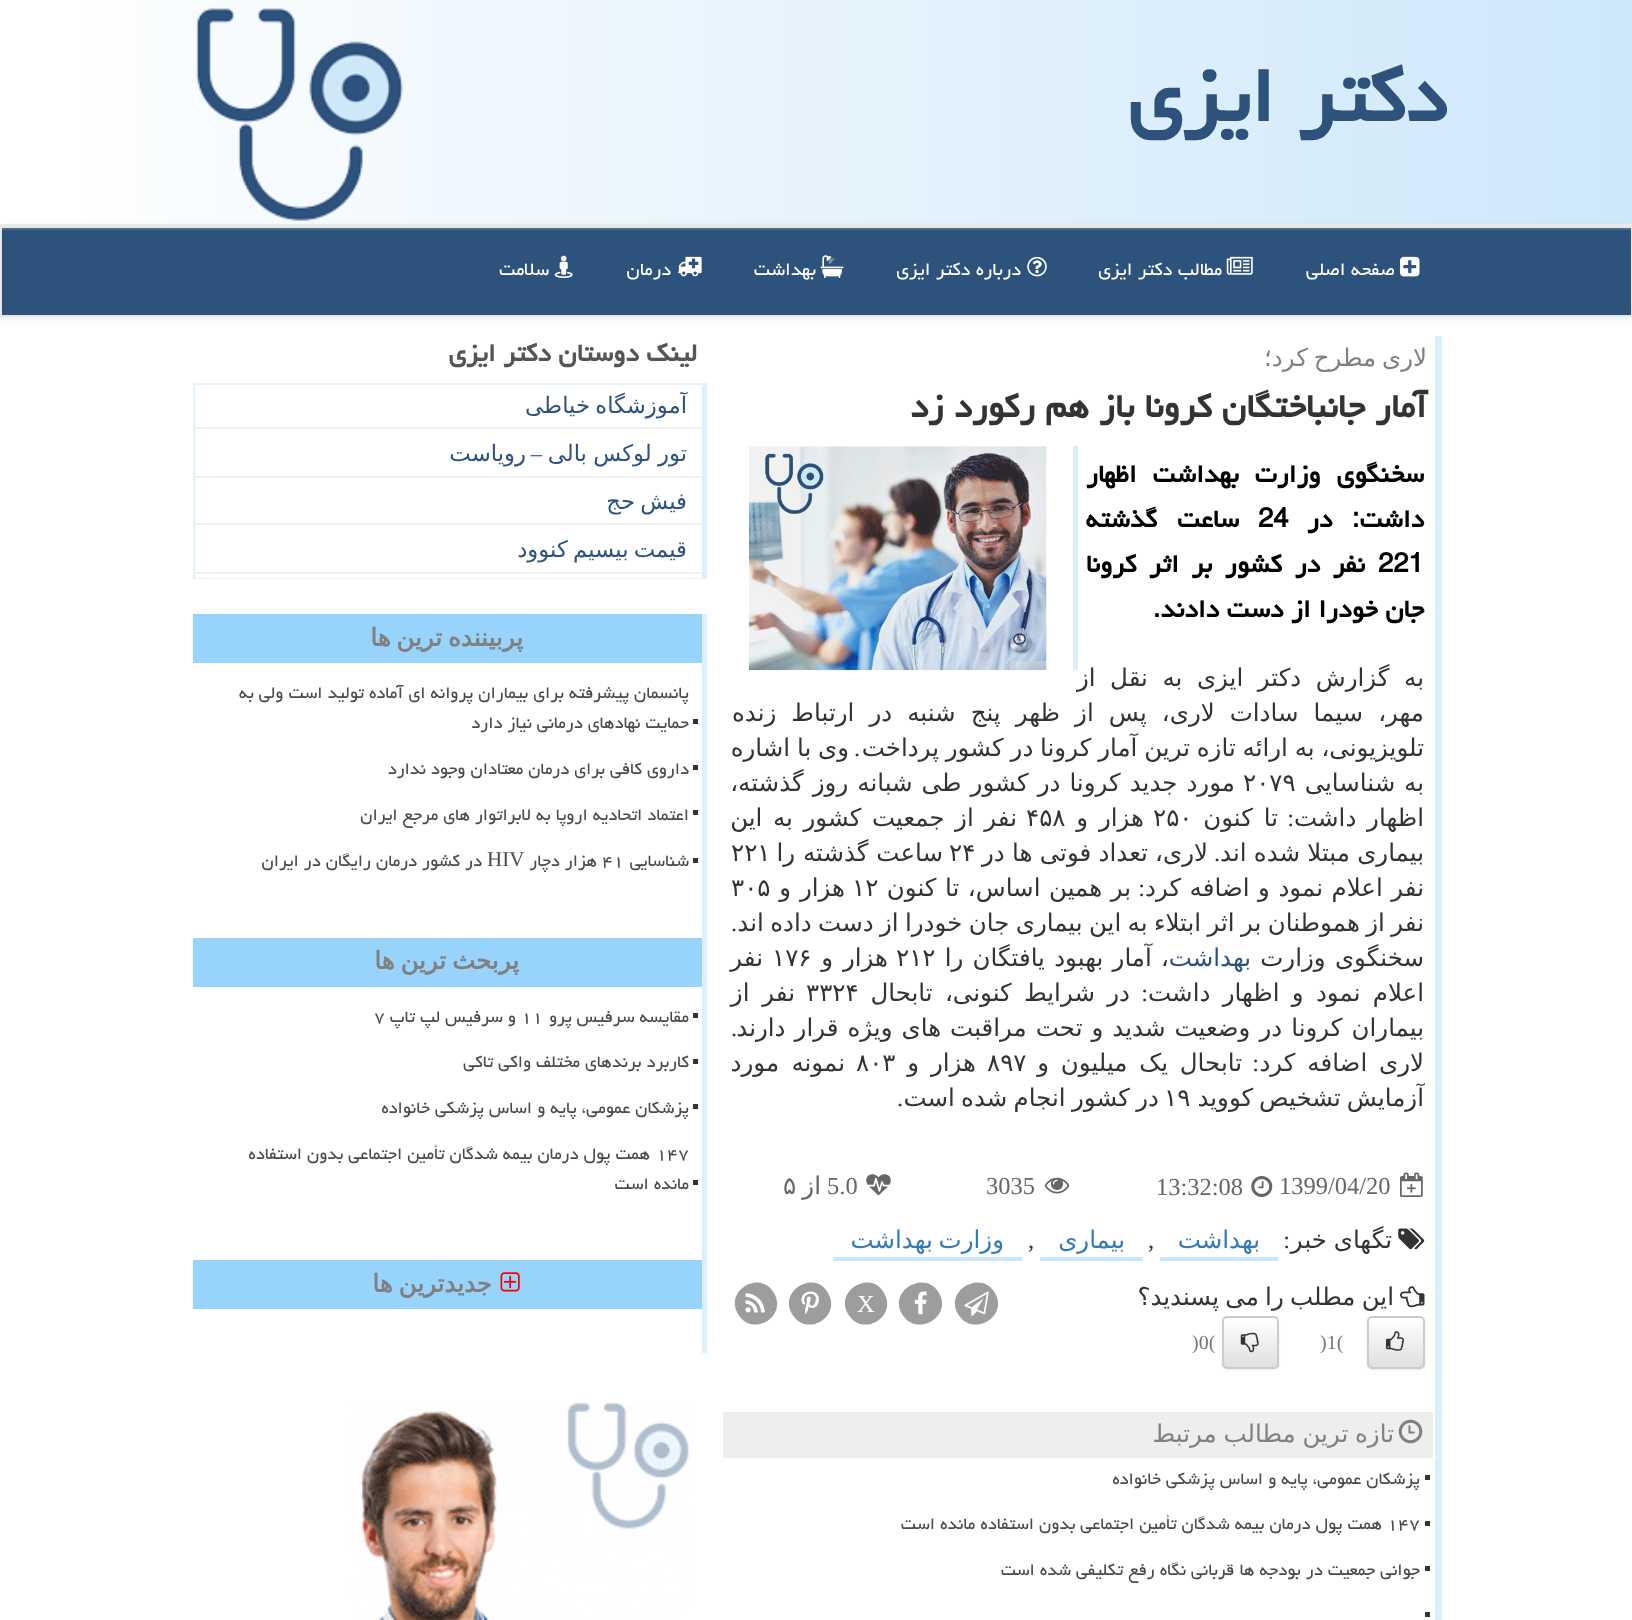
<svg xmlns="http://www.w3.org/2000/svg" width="1632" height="1620">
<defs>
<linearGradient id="g1" gradientUnits="userSpaceOnUse" x1="0" y1="112" x2="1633" y2="112"><stop offset="0" stop-color="#fff"/><stop offset="1" stop-color="#cee8fa"/></linearGradient>
<clipPath id="clip1"><rect x="1367" y="1316" width="58" height="53" rx="5"/></clipPath>
<linearGradient id="g2" gradientUnits="userSpaceOnUse" x1="1396" y1="1318" x2="1396" y2="1367"><stop offset="0" stop-color="#fff"/><stop offset="1" stop-color="#e0e0e0"/></linearGradient>
<clipPath id="clip2"><rect x="1222" y="1316" width="57" height="53" rx="5"/></clipPath>
<linearGradient id="g3" gradientUnits="userSpaceOnUse" x1="1250" y1="1318" x2="1250" y2="1367"><stop offset="0" stop-color="#fff"/><stop offset="1" stop-color="#e0e0e0"/></linearGradient>
</defs>
<rect width="100%" height="100%" fill="#fff"/>
<rect x="83" width="1549" height="224" fill="url(#g1)"/>
<rect y="224" width="1632" height="2" fill="#eee"/>
<text x="1446" y="121" style="font-family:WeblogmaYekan;font-size:98px;font-weight:bold;direction:rtl;fill:#2d527c">دكتر ایزی</text>
<image x="196" y="8" width="207" height="213" href="media/1.png"/>
<rect y="228" width="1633" height="91" fill="#00000012" filter="blur(4.5px)"/>
<rect x="2" y="230" width="1629" height="85" fill="#2d527c"/>
<rect x="2" y="228" width="1629" height="2" fill="#4d6c90"/>
<rect x="1" y="227" width="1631" height="89" fill="none" stroke="#e7e7e7" stroke-width="2"/>
<image x="1400" y="256" width="20" height="21" href="media/2.png"/>
<text x="1395" y="275" style="font-family:WeblogmaYekan;font-size:22.75px;direction:rtl;fill:#fff">صفحه اصلی</text>
<image x="1226" y="256" width="27" height="19" href="media/3.png"/>
<text x="1222" y="275" style="font-family:WeblogmaYekan;font-size:22.75px;direction:rtl;fill:#fff">مطالب دكتر ایزی</text>
<image x="1027" y="256" width="20" height="21" href="media/4.png"/>
<text x="1021" y="275" style="font-family:WeblogmaYekan;font-size:22.75px;direction:rtl;fill:#fff">درباره دكتر ایزی</text>
<image x="820" y="255" width="24" height="23" href="media/5.png"/>
<text x="816" y="275" style="font-family:WeblogmaYekan;font-size:22.75px;direction:rtl;fill:#fff">بهداشت</text>
<image x="678" y="256" width="24" height="21" href="media/6.png"/>
<text x="671" y="275" style="font-family:WeblogmaYekan;font-size:22.75px;direction:rtl;fill:#fff">درمان</text>
<image x="554" y="255" width="19" height="23" href="media/7.png"/>
<text x="549" y="275" style="font-family:WeblogmaYekan;font-size:22.75px;direction:rtl;fill:#fff">سلامت</text>
<rect x="1435" y="336" width="7" height="1284" fill="#dbeefb"/>
<text x="1427" y="366" word-spacing="-2" style="font-family:DejaVu Sans;font-size:24.5px;direction:rtl;fill:#808080">لاری مطرح كرد؛</text>
<text x="1427" y="417" style="font-family:WeblogmaYekan;font-size:42px;font-weight:bold;direction:rtl;fill:#333">آمار جانباختگان كرونا باز هم ركورد زد</text>
<text x="1424" y="482" word-spacing="8.5" style="font-family:WeblogmaYekan;font-size:31.5px;font-weight:bold;direction:rtl;fill:#000">سخنگوی وزارت بهداشت اظهار</text>
<text x="1424" y="527" word-spacing="12" style="font-family:WeblogmaYekan;font-size:31.5px;font-weight:bold;direction:rtl;fill:#000">داشت: در</text>
<text x="1258" y="527" style="font-family:WeblogmaYekan;font-size:31.5px;font-weight:bold;fill:#000">24</text>
<text x="1239" y="527" word-spacing="12" style="font-family:WeblogmaYekan;font-size:31.5px;font-weight:bold;direction:rtl;fill:#000">ساعت گذشته</text>
<text x="1378" y="572" style="font-family:WeblogmaYekan;font-size:31.5px;font-weight:bold;fill:#000">221</text>
<text x="1365" y="572" word-spacing="5.25" style="font-family:WeblogmaYekan;font-size:31.5px;font-weight:bold;direction:rtl;fill:#000">نفر در كشور بر اثر كرونا</text>
<text x="1424" y="617" style="font-family:WeblogmaYekan;font-size:31.5px;font-weight:bold;direction:rtl;fill:#000">جان خودرا از دست دادند.</text>
<text x="1424" y="686" word-spacing="6.75" style="font-family:DejaVu Sans;font-size:24.5px;direction:rtl;fill:#333">به گزارش دکتر ایزی به نقل از</text>
<rect x="1073" y="446" width="5" height="224" fill="#dbeefb"/>
<image x="749" y="446" width="298" height="225" href="media/8.png"/>
<text x="1424" y="721" word-spacing="7.25" style="font-family:DejaVu Sans;font-size:24.5px;direction:rtl;fill:#333">مهر، سیما سادات لاری، پس از ظهر پنج شنبه در ارتباط زنده</text>
<text x="1424" y="756" word-spacing="-1" style="font-family:DejaVu Sans;font-size:24.5px;direction:rtl;fill:#333">تلویزیونی، به ارائه تازه ترین آمار کرونا در کشور پرداخت</text>
<text x="860" y="756" style="font-family:Liberation Serif;font-size:24.5px;direction:rtl;fill:#333">.</text>
<text x="849" y="756" word-spacing="-1" style="font-family:DejaVu Sans;font-size:24.5px;direction:rtl;fill:#333">وی با اشاره</text>
<text x="1424" y="791" word-spacing="1" style="font-family:DejaVu Sans;font-size:24.5px;direction:rtl;fill:#333">به شناسایی</text>
<text x="1243" y="791" style="font-family:DejaVu Sans;font-size:24.5px;fill:#333">۲۰۷۹</text>
<text x="1235" y="791" word-spacing="1.25" style="font-family:DejaVu Sans;font-size:24.5px;direction:rtl;fill:#333">مورد جدید کرونا در کشور طی شبانه روز گذشته،</text>
<text x="1424" y="826" word-spacing="3" style="font-family:DejaVu Sans;font-size:24.5px;direction:rtl;fill:#333">اظهار داشت</text>
<text x="1294" y="826" style="font-family:Liberation Serif;font-size:24.5px;direction:rtl;fill:#333">:</text>
<text x="1278" y="826" word-spacing="3" style="font-family:DejaVu Sans;font-size:24.5px;direction:rtl;fill:#333">تا کنون</text>
<text x="1153" y="826" style="font-family:DejaVu Sans;font-size:24.5px;fill:#333">۲۵۰</text>
<text x="1144" y="826" word-spacing="3" style="font-family:DejaVu Sans;font-size:24.5px;direction:rtl;fill:#333">هزار و</text>
<text x="1026" y="826" style="font-family:DejaVu Sans;font-size:24.5px;fill:#333">۴۵۸</text>
<text x="1017" y="826" word-spacing="2.75" style="font-family:DejaVu Sans;font-size:24.5px;direction:rtl;fill:#333">نفر از جمعیت کشور به این</text>
<text x="1424" y="861" word-spacing="-0.5" style="font-family:DejaVu Sans;font-size:24.5px;direction:rtl;fill:#333">بیماری مبتلا شده اند</text>
<text x="1220" y="861" style="font-family:Liberation Serif;font-size:24.5px;direction:rtl;fill:#333">.</text>
<text x="1208" y="861" word-spacing="-0.5" style="font-family:DejaVu Sans;font-size:24.5px;direction:rtl;fill:#333">لاری، تعداد فوتی ها در</text>
<text x="949" y="861" style="font-family:DejaVu Sans;font-size:24.5px;fill:#333">۲۴</text>
<text x="943" y="861" style="font-family:DejaVu Sans;font-size:24.5px;direction:rtl;fill:#333">ساعت گذشته را</text>
<text x="731" y="861" style="font-family:DejaVu Sans;font-size:24.5px;fill:#333">۲۲۱</text>
<text x="1424" y="896" word-spacing="0.75" style="font-family:DejaVu Sans;font-size:24.5px;direction:rtl;fill:#333">نفر اعلام نمود و اضافه کرد</text>
<text x="1145" y="896" style="font-family:Liberation Serif;font-size:24.5px;direction:rtl;fill:#333">:</text>
<text x="1131" y="896" word-spacing="0.75" style="font-family:DejaVu Sans;font-size:24.5px;direction:rtl;fill:#333">بر همین اساس، تا کنون</text>
<text x="852" y="896" style="font-family:DejaVu Sans;font-size:24.5px;fill:#333">۱۲</text>
<text x="845" y="896" word-spacing="1" style="font-family:DejaVu Sans;font-size:24.5px;direction:rtl;fill:#333">هزار و</text>
<text x="731" y="896" style="font-family:DejaVu Sans;font-size:24.5px;fill:#333">۳۰۵</text>
<text x="1424" y="931" word-spacing="-1.4" style="font-family:DejaVu Sans;font-size:24.5px;direction:rtl;fill:#333">نفر از هموطنان بر اثر ابتلاء به این بیماری جان خودرا از دست داده اند</text>
<text x="737" y="931" style="font-family:Liberation Serif;font-size:24.5px;direction:rtl;fill:#333">.</text>
<text x="1424" y="966" word-spacing="1.5" style="font-family:DejaVu Sans;font-size:24.5px;direction:rtl;fill:#333">سخنگوی وزارت</text>
<text x="1251" y="966" style="font-family:DejaVu Sans;font-size:24.5px;direction:rtl;fill:#2d527c">بهداشت</text>
<text x="1169" y="966" word-spacing="1.5" style="font-family:DejaVu Sans;font-size:24.5px;direction:rtl;fill:#333">، آمار بهبود یافتگان را</text>
<text x="896" y="966" style="font-family:DejaVu Sans;font-size:24.5px;fill:#333">۲۱۲</text>
<text x="888" y="966" word-spacing="2" style="font-family:DejaVu Sans;font-size:24.5px;direction:rtl;fill:#333">هزار و</text>
<text x="772" y="966" style="font-family:DejaVu Sans;font-size:24.5px;fill:#333">۱۷۶</text>
<text x="763" y="966" style="font-family:DejaVu Sans;font-size:24.5px;direction:rtl;fill:#333">نفر</text>
<text x="1424" y="1001" word-spacing="4.5" style="font-family:DejaVu Sans;font-size:24.5px;direction:rtl;fill:#333">اعلام نمود و اظهار داشت</text>
<text x="1148" y="1001" style="font-family:Liberation Serif;font-size:24.5px;direction:rtl;fill:#333">:</text>
<text x="1130" y="1001" word-spacing="4.5" style="font-family:DejaVu Sans;font-size:24.5px;direction:rtl;fill:#333">در شرایط کنونی، تابحال</text>
<text x="806" y="1001" style="font-family:DejaVu Sans;font-size:24.5px;fill:#333">۳۳۲۴</text>
<text x="795" y="1001" word-spacing="5" style="font-family:DejaVu Sans;font-size:24.5px;direction:rtl;fill:#333">نفر از</text>
<text x="1424" y="1036" word-spacing="1.25" style="font-family:DejaVu Sans;font-size:24.5px;direction:rtl;fill:#333">بیماران کرونا در وضعیت شدید و تحت مراقبت های ویژه قرار دارند</text>
<text x="737" y="1036" style="font-family:Liberation Serif;font-size:24.5px;direction:rtl;fill:#333">.</text>
<text x="1424" y="1071" word-spacing="4" style="font-family:DejaVu Sans;font-size:24.5px;direction:rtl;fill:#333">لاری اضافه کرد</text>
<text x="1259" y="1071" style="font-family:Liberation Serif;font-size:24.5px;direction:rtl;fill:#333">:</text>
<text x="1242" y="1071" word-spacing="4" style="font-family:DejaVu Sans;font-size:24.5px;direction:rtl;fill:#333">تابحال یک میلیون و</text>
<text x="987" y="1071" style="font-family:DejaVu Sans;font-size:24.5px;fill:#333">۸۹۷</text>
<text x="976" y="1071" word-spacing="4" style="font-family:DejaVu Sans;font-size:24.5px;direction:rtl;fill:#333">هزار و</text>
<text x="856" y="1071" style="font-family:DejaVu Sans;font-size:24.5px;fill:#333">۸۰۳</text>
<text x="845" y="1071" word-spacing="4.5" style="font-family:DejaVu Sans;font-size:24.5px;direction:rtl;fill:#333">نمونه مورد</text>
<text x="1424" y="1106" word-spacing="-2" style="font-family:DejaVu Sans;font-size:24.5px;direction:rtl;fill:#333">آزمایش تشخیص کووید</text>
<text x="1164" y="1106" style="font-family:DejaVu Sans;font-size:24.5px;fill:#333">۱۹</text>
<text x="1159" y="1106" word-spacing="-1.5" style="font-family:DejaVu Sans;font-size:24.5px;direction:rtl;fill:#333">در کشور انجام شده است</text>
<text x="903" y="1106" style="font-family:Liberation Serif;font-size:24.5px;direction:rtl;fill:#333">.</text>
<image x="1400" y="1172" width="23" height="25" href="media/9.png"/>
<text x="1279" y="1194" style="font-family:Liberation Serif;font-size:24.5px;fill:#666">1399/04/20</text>
<image x="1251" y="1176" width="22" height="21" href="media/10.png"/>
<text x="1156" y="1195" style="font-family:Liberation Serif;font-size:24.5px;fill:#666">13:32:08</text>
<image x="1044" y="1177" width="26" height="17" href="media/11.png"/>
<text x="986" y="1194" style="font-family:Liberation Serif;font-size:24.5px;fill:#666">3035</text>
<image x="866" y="1174" width="25" height="22" href="media/12.png"/>
<text x="827" y="1194" style="font-family:Liberation Serif;font-size:24.5px;fill:#666">5.0</text>
<text x="821" y="1194" style="font-family:DejaVu Sans;font-size:24.5px;direction:rtl;fill:#666">از</text>
<text x="783" y="1194" style="font-family:DejaVu Sans;font-size:24.5px;fill:#666">۵</text>
<image x="1398" y="1228" width="27" height="22" href="media/13.png"/>
<text x="1392" y="1248" word-spacing="-1" style="font-family:DejaVu Sans;font-size:24.5px;direction:rtl;fill:#333">تگهای خبر</text>
<text x="1290" y="1248" style="font-family:Liberation Serif;font-size:24.5px;direction:rtl;fill:#333">:</text>
<text x="1260" y="1248" style="font-family:DejaVu Sans;font-size:24.5px;direction:rtl;fill:#337ab7">بهداشت</text>
<rect x="1160" y="1257" width="118" height="4" fill="#c9e6ff"/>
<text x="1148" y="1248" style="font-family:Liberation Serif;font-size:24.5px;fill:#333">,</text>
<text x="1125" y="1248" style="font-family:DejaVu Sans;font-size:24.5px;direction:rtl;fill:#337ab7">بیماری</text>
<rect x="1040" y="1257" width="103" height="4" fill="#c9e6ff"/>
<text x="1028" y="1248" style="font-family:Liberation Serif;font-size:24.5px;fill:#333">,</text>
<text x="1004" y="1248" word-spacing="-2" style="font-family:DejaVu Sans;font-size:24.5px;direction:rtl;fill:#337ab7">وزارت بهداشت</text>
<rect x="833" y="1257" width="189" height="4" fill="#c9e6ff"/>
<image x="1400" y="1286" width="25" height="22" href="media/14.png"/>
<text x="1394" y="1305" word-spacing="-1.5" style="font-family:DejaVu Sans;font-size:24.5px;direction:rtl;fill:#333">این مطلب را می پسندید؟</text>
<rect x="1367" y="1318" width="58" height="52" rx="5" fill="#00000012" filter="blur(1px)"/>
<g clip-path="url(#clip1)">
<rect x="1367" y="1318" width="58" height="49" fill="url(#g2)"/>
</g>
<rect x="1368" y="1317" width="56" height="51" rx="4" fill="none" stroke="#ccc" stroke-width="2"/>
<image x="1386" y="1331" width="18" height="20" href="media/15.png"/>
<text x="1320" y="1349" style="font-family:Liberation Serif;font-size:20px;fill:#777">)1(</text>
<rect x="1222" y="1318" width="57" height="52" rx="5" fill="#00000012" filter="blur(1px)"/>
<g clip-path="url(#clip2)">
<rect x="1222" y="1318" width="57" height="49" fill="url(#g3)"/>
</g>
<rect x="1223" y="1317" width="55" height="51" rx="4" fill="none" stroke="#ccc" stroke-width="2"/>
<image x="1240" y="1332" width="19" height="21" href="media/16.png"/>
<text x="1192" y="1349" style="font-family:Liberation Serif;font-size:20px;fill:#777">)0(</text>
<path d="M995 1293c14 24-23 45-37 21c-14-23 23-45 37-21z" fill="#9d9d9d"/>
<image x="964" y="1291" width="25" height="25" href="media/17.png"/>
<path d="M939 1293c14 24-23 45-37 21c-14-23 23-45 37-21z" fill="#9d9d9d"/>
<image x="914" y="1291" width="13" height="24" href="media/18.png"/>
<path d="M884 1293c14 24-22 45-36 21c-14-23 23-45 36-21z" fill="#9d9d9d"/>
<text x="857" y="1312" style="font-family:Liberation Serif;font-size:24.5px;fill:#fff">X</text>
<path d="M828 1293c14 24-22 45-36 21c-14-23 23-45 36-21z" fill="#9d9d9d"/>
<image x="801" y="1291" width="18" height="24" href="media/19.png"/>
<path d="M774 1293c14 24-22 45-36 21c-14-23 22-45 36-21z" fill="#9d9d9d"/>
<image x="745" y="1293" width="20" height="20" href="media/20.png"/>
<rect x="723" y="1412" width="710" height="46" fill="#eee"/>
<image x="1398" y="1419" width="25" height="25" href="media/21.png"/>
<text x="1394" y="1442" word-spacing="-1" style="font-family:DejaVu Sans;font-size:24.5px;direction:rtl;fill:#808080">تازه ترین مطالب مرتبط</text>
<rect x="1425" y="1475" width="5" height="5" fill="#333"/>
<text x="1420" y="1484" style="font-family:WeblogmaYekan;font-size:21px;direction:rtl;fill:#4a4a4a">پزشکان عمومی، پایه و اساس پزشکی خانواده</text>
<rect x="1425" y="1521" width="5" height="5" fill="#333"/>
<text x="1387" y="1529" style="font-family:WeblogmaYekan;font-size:21px;fill:#4a4a4a">۱۴۷</text>
<text x="1382" y="1529" style="font-family:WeblogmaYekan;font-size:21px;direction:rtl;fill:#4a4a4a">همت پول درمان بیمه شدگان تأمین اجتماعی بدون استفاده مانده است</text>
<rect x="1425" y="1566" width="5" height="5" fill="#333"/>
<text x="1420" y="1575" style="font-family:WeblogmaYekan;font-size:21px;direction:rtl;fill:#4a4a4a">جوانی جمعیت در بودجه ها قربانی نگاه رفع تکلیفی شده است</text>
<rect x="1425" y="1612" width="5" height="5" fill="#333"/>
<text x="697" y="361" style="font-family:WeblogmaYekan;font-size:31.5px;font-weight:bold;direction:rtl;fill:#555">لینک دوستان دكتر ایزی</text>
<path d="M192 383h515l-5 2h-508z" fill="#e4f2fb"/>
<path d="M707 383v196l-5-1v-193z" fill="#dbeefb"/>
<path d="M707 579h-515l2-1h508z" fill="#e4f2fb"/>
<rect x="193" y="383" width="2" height="196" fill="#e4f2fb"/>
<rect x="194" y="427" width="508" height="2" fill="#f1f1f1"/>
<text x="687" y="413" word-spacing="-2" style="font-family:DejaVu Sans;font-size:22.75px;direction:rtl;fill:#2d527c">آموزشگاه خیاطی</text>
<rect x="194" y="476" width="508" height="2" fill="#f1f1f1"/>
<text x="687" y="461" word-spacing="-1" style="font-family:DejaVu Sans;font-size:22.75px;direction:rtl;fill:#2d527c">تور لوکس بالی</text>
<text x="542" y="461" style="font-family:Liberation Serif;font-size:22.75px;direction:rtl;fill:#2d527c">–</text>
<text x="526" y="461" style="font-family:DejaVu Sans;font-size:22.75px;direction:rtl;fill:#2d527c">رویاست</text>
<rect x="194" y="523" width="508" height="2" fill="#f1f1f1"/>
<text x="687" y="509" word-spacing="-2" style="font-family:DejaVu Sans;font-size:22.75px;direction:rtl;fill:#2d527c">فیش حج</text>
<rect x="194" y="572" width="508" height="2" fill="#f1f1f1"/>
<text x="687" y="557" word-spacing="-2" style="font-family:DejaVu Sans;font-size:22.75px;direction:rtl;fill:#2d527c">قیمت بیسیم کنوود</text>
<rect x="702" y="614" width="5" height="739" fill="#dbeefb"/>
<rect x="193" y="614" width="509" height="49" fill="#98d3fb"/>
<text x="523" y="646" word-spacing="-2" style="font-family:DejaVu Sans;font-size:24.5px;font-weight:bold;direction:rtl;fill:#808080">پربیننده ترین ها</text>
<rect x="693" y="719" width="5" height="5" fill="#333"/>
<text x="689" y="698" style="font-family:WeblogmaYekan;font-size:21px;direction:rtl;fill:#4a4a4a">پانسمان پیشرفته برای بیماران پروانه ای آماده تولید است ولی به</text>
<text x="689" y="728" style="font-family:WeblogmaYekan;font-size:21px;direction:rtl;fill:#4a4a4a">حمایت نهادهای درمانی نیاز دارد</text>
<rect x="693" y="765" width="5" height="5" fill="#333"/>
<text x="689" y="774" style="font-family:WeblogmaYekan;font-size:21px;direction:rtl;fill:#4a4a4a">داروی کافی برای درمان معتادان وجود ندارد</text>
<rect x="693" y="810" width="5" height="5" fill="#333"/>
<text x="689" y="820" style="font-family:WeblogmaYekan;font-size:21px;direction:rtl;fill:#4a4a4a">اعتماد اتحادیه اروپا به لابراتوار های مرجع ایران</text>
<rect x="693" y="858" width="5" height="5" fill="#333"/>
<text x="689" y="866" style="font-family:WeblogmaYekan;font-size:21px;direction:rtl;fill:#4a4a4a">شناسایی</text>
<text x="602" y="866" style="font-family:WeblogmaYekan;font-size:21px;fill:#4a4a4a">۴۱</text>
<text x="597" y="866" style="font-family:WeblogmaYekan;font-size:21px;direction:rtl;fill:#4a4a4a">هزار دچار</text>
<text x="487" y="866" style="font-family:Liberation Serif;font-size:21px;fill:#4a4a4a">HIV</text>
<text x="482" y="866" style="font-family:WeblogmaYekan;font-size:21px;direction:rtl;fill:#4a4a4a">در کشور درمان رایگان در ایران</text>
<rect x="193" y="938" width="509" height="49" fill="#98d3fb"/>
<text x="519" y="969" word-spacing="-2" style="font-family:DejaVu Sans;font-size:24.5px;font-weight:bold;direction:rtl;fill:#808080">پربحث ترین ها</text>
<rect x="693" y="1013" width="5" height="5" fill="#333"/>
<text x="689" y="1022" style="font-family:WeblogmaYekan;font-size:21px;direction:rtl;fill:#4a4a4a">مقایسه سرفیس پرو</text>
<text x="521" y="1022" style="font-family:WeblogmaYekan;font-size:21px;fill:#4a4a4a">۱۱</text>
<text x="516" y="1022" style="font-family:WeblogmaYekan;font-size:21px;direction:rtl;fill:#4a4a4a">و سرفیس لپ تاپ</text>
<text x="374" y="1022" style="font-family:WeblogmaYekan;font-size:21px;fill:#4a4a4a">۷</text>
<rect x="693" y="1059" width="5" height="5" fill="#333"/>
<text x="689" y="1067" style="font-family:WeblogmaYekan;font-size:21px;direction:rtl;fill:#4a4a4a">کاربرد برندهای مختلف واکی تاکی</text>
<rect x="693" y="1104" width="5" height="5" fill="#333"/>
<text x="689" y="1113" style="font-family:WeblogmaYekan;font-size:21px;direction:rtl;fill:#4a4a4a">پزشکان عمومی، پایه و اساس پزشکی خانواده</text>
<rect x="693" y="1180" width="5" height="5" fill="#333"/>
<text x="656" y="1159" style="font-family:WeblogmaYekan;font-size:21px;fill:#4a4a4a">۱۴۷</text>
<text x="650" y="1159" style="font-family:WeblogmaYekan;font-size:21px;direction:rtl;fill:#4a4a4a">همت پول درمان بیمه شدگان تأمین اجتماعی بدون استفاده</text>
<text x="689" y="1189" style="font-family:WeblogmaYekan;font-size:21px;direction:rtl;fill:#4a4a4a">مانده است</text>
<rect x="193" y="1260" width="509" height="49" fill="#98d3fb"/>
<image x="500" y="1272" width="20" height="20" href="media/22.png"/>
<text x="492" y="1292" word-spacing="-2" style="font-family:DejaVu Sans;font-size:24.5px;font-weight:bold;direction:rtl;fill:#808080">جدیدترین ها</text>
<image x="351" y="1402" width="338" height="218" href="media/23.png"/>
</svg>
